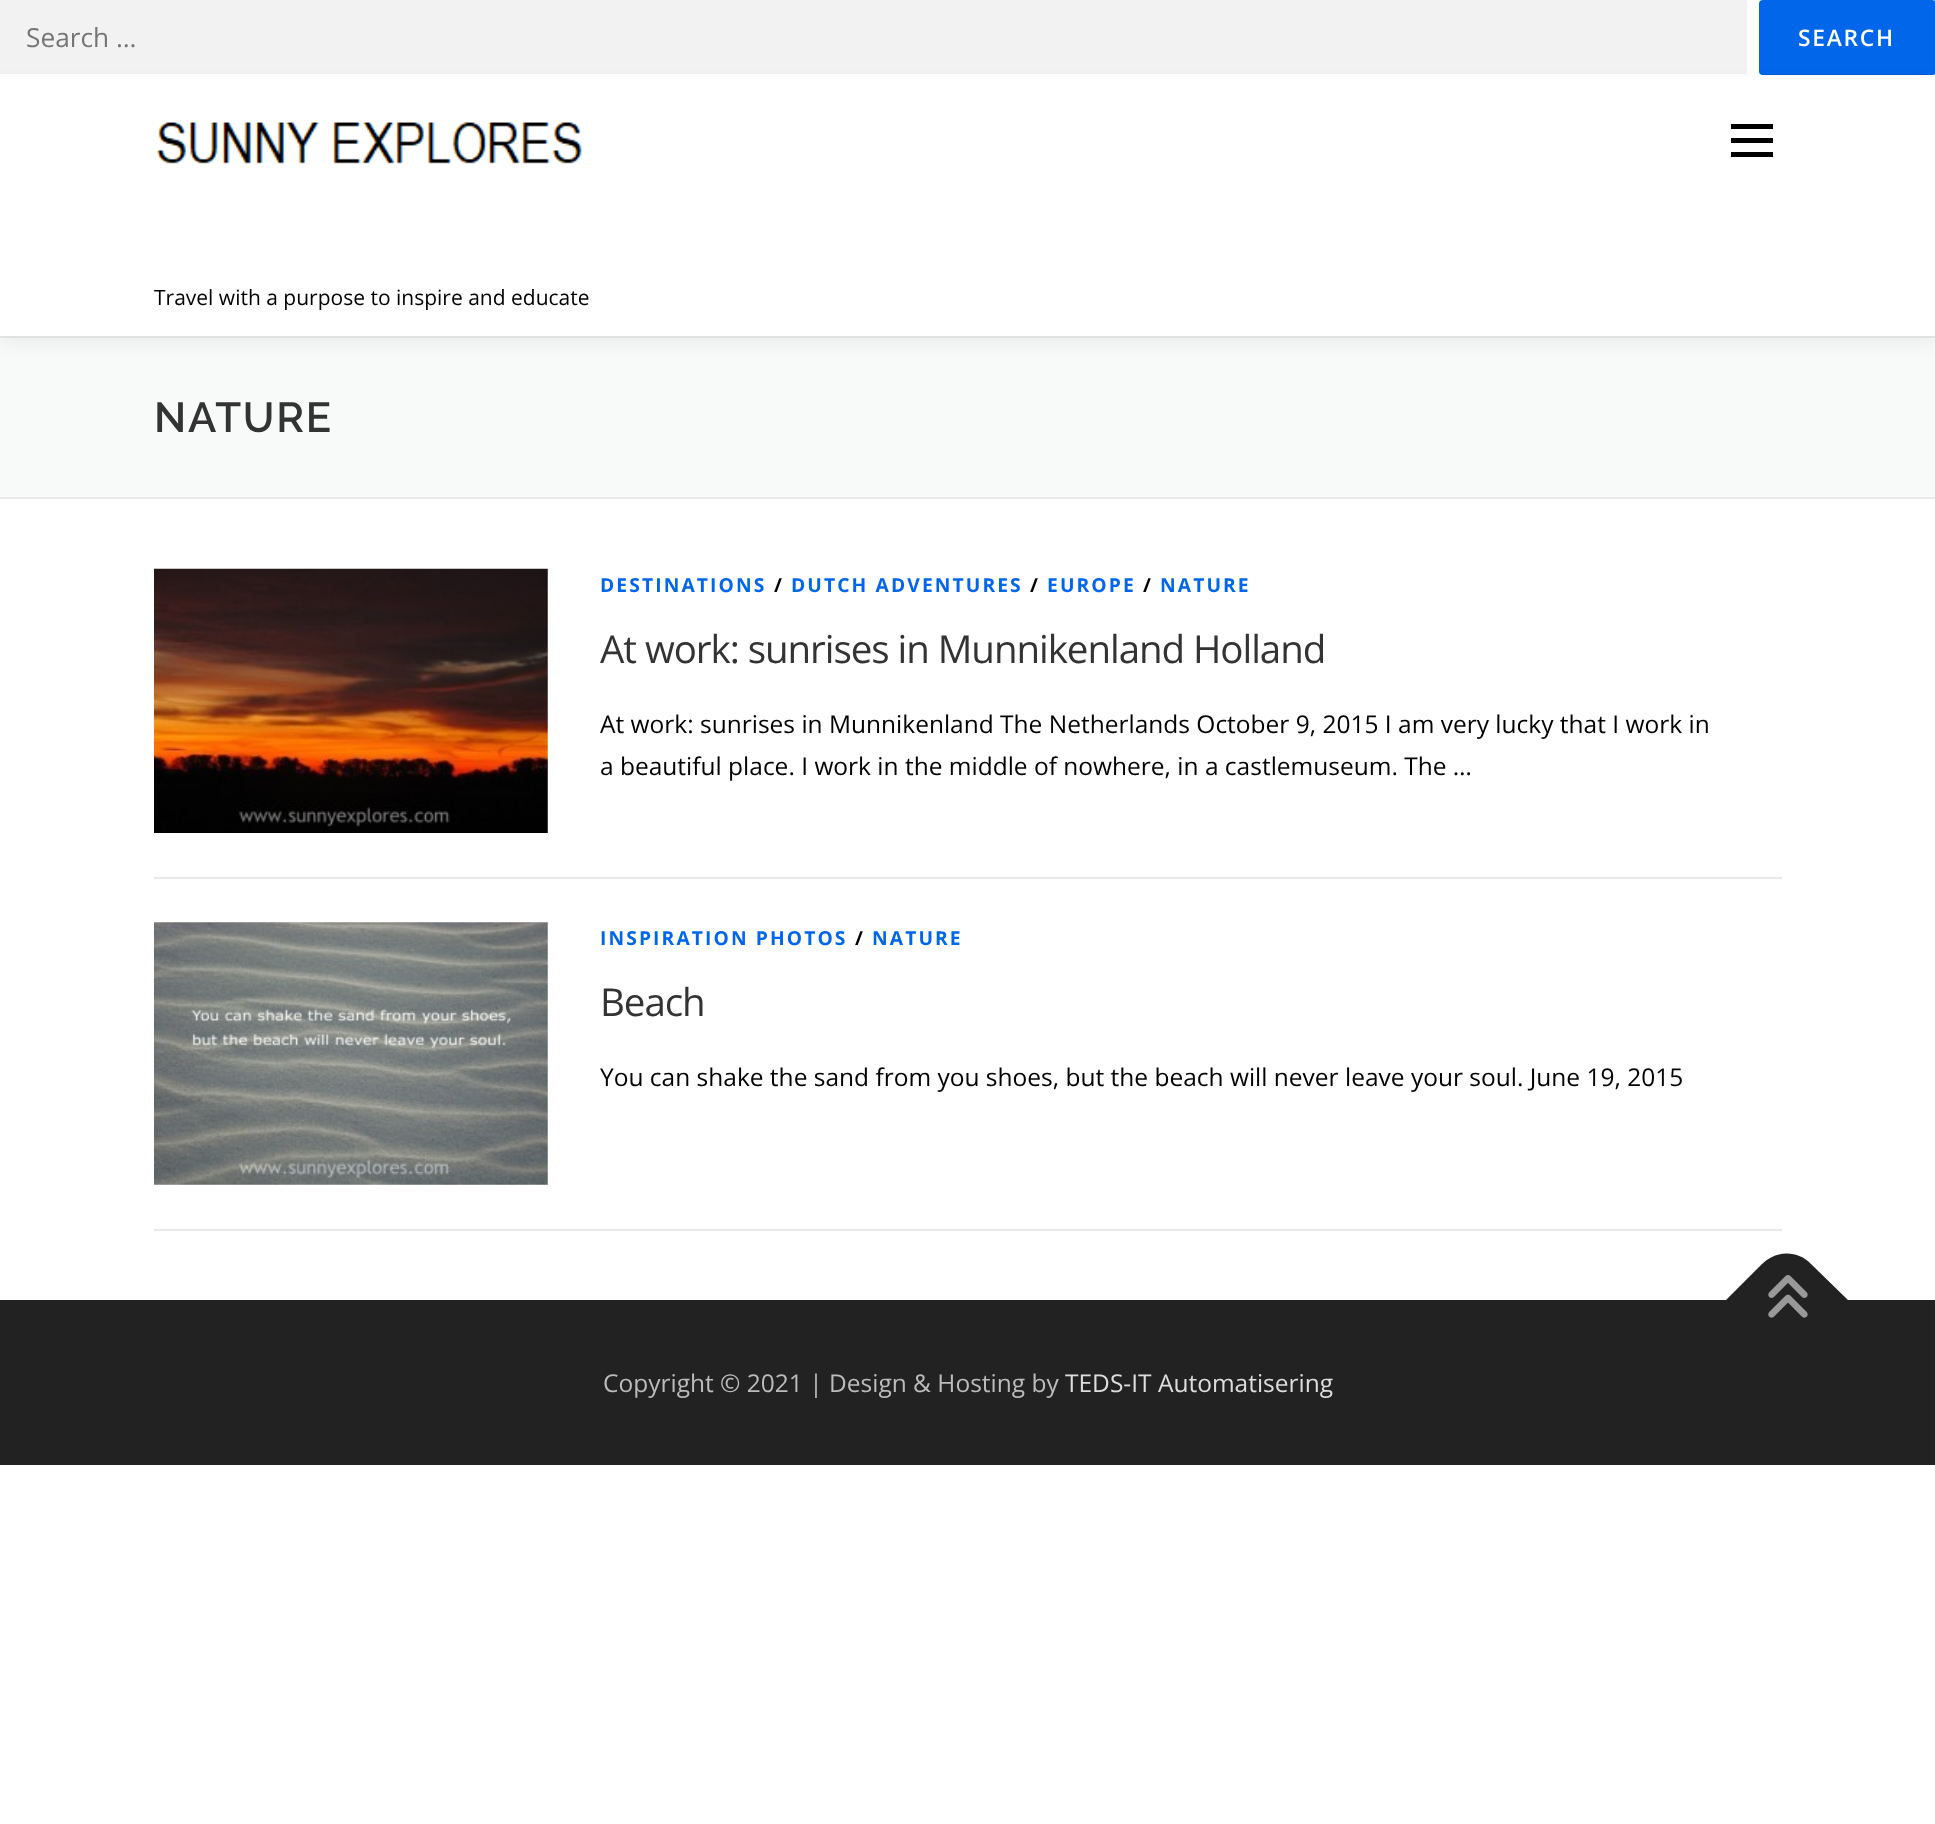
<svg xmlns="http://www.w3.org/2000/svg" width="1935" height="1824">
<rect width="100%" height="100%" fill="#fff"/>
<rect width="1747" height="74" fill="#f2f2f2"/>
<text x="26" y="47" style="font-family:Open Sans;font-size:26.25px;fill:#757575">Search …</text>
<rect x="1759" width="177" height="75" rx="4" fill="#0266ea"/>
<path d="M1759 70v1c0 2 2 4 4 4h169c2 0 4-2 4-4v-1c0 2-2 4-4 4h-170c-2 0-3-2-3-4z" fill="#0000001a"/>
<text x="1798" y="46" style="font-family:Open Sans;font-size:22.75px;font-weight:600;letter-spacing:1.75px;fill:#fff">SEARCH</text>
<rect y="338" width="1935" height="159" fill="#f8f9f9"/>
<rect y="336" width="1935" height="2" fill="#e9e9e9"/>
<rect y="84" width="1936" height="261" fill="#3232320f" filter="blur(9px)"/>
<rect y="77" width="1935" height="259" fill="#fff"/>
<rect x="1731" y="138" width="42" height="5" fill="#000"/>
<rect x="1731" y="124" width="42" height="5" fill="#000"/>
<rect x="1731" y="152" width="42" height="5" fill="#000"/>
<image x="157" y="122" width="425" height="42" href="media/1.png"/>
<text x="154" y="305" style="font-family:Open Sans;font-size:21px;fill:#000">Travel with a purpose to inspire and educate</text>
<rect y="497" width="1935" height="2" fill="#e9e9e9"/>
<text x="154" y="432" style="font-family:Raleway;font-size:42px;font-weight:600;letter-spacing:1.75px;fill:#333">NATURE</text>
<image x="154" y="568" width="394" height="265" href="media/2.png"/>
<text x="600" y="592" style="font-family:Open Sans;font-size:19.25px;font-weight:bold;letter-spacing:2.1px;fill:#0266ea">DESTINATIONS</text>
<text x="774" y="592" style="font-family:Open Sans;font-size:19.25px;font-weight:bold;letter-spacing:2.1px;fill:#000">/</text>
<text x="791" y="592" style="font-family:Open Sans;font-size:19.25px;font-weight:bold;letter-spacing:2.1px;fill:#0266ea">DUTCH ADVENTURES</text>
<text x="1030" y="592" style="font-family:Open Sans;font-size:19.25px;font-weight:bold;letter-spacing:2.1px;fill:#000">/</text>
<text x="1047" y="592" style="font-family:Open Sans;font-size:19.25px;font-weight:bold;letter-spacing:2.1px;fill:#0266ea">EUROPE</text>
<text x="1143" y="592" style="font-family:Open Sans;font-size:19.25px;font-weight:bold;letter-spacing:2.1px;fill:#000">/</text>
<text x="1160" y="592" style="font-family:Open Sans;font-size:19.25px;font-weight:bold;letter-spacing:2.1px;fill:#0266ea">NATURE</text>
<text x="600" y="663" style="font-family:Open Sans;font-size:38.5px;letter-spacing:-1.05px;fill:#333">At work: sunrises in Munnikenland Holland</text>
<text x="600" y="733" style="font-family:Open Sans;font-size:24.5px;fill:#000">At work: sunrises in Munnikenland The Netherlands October 9, 2015 I am very lucky that I work in</text>
<text x="600" y="775" style="font-family:Open Sans;font-size:24.5px;fill:#000">a beautiful place. I work in the middle of nowhere, in a castlemuseum. The …</text>
<rect x="154" y="877" width="1628" height="2" fill="#e9e9e9"/>
<rect x="154" y="1229" width="1628" height="2" fill="#e9e9e9"/>
<image x="154" y="922" width="394" height="263" href="media/3.png"/>
<text x="600" y="945" style="font-family:Open Sans;font-size:19.25px;font-weight:bold;letter-spacing:2.1px;fill:#0266ea">INSPIRATION PHOTOS</text>
<text x="855" y="945" style="font-family:Open Sans;font-size:19.25px;font-weight:bold;letter-spacing:2.1px;fill:#000">/</text>
<text x="872" y="945" style="font-family:Open Sans;font-size:19.25px;font-weight:bold;letter-spacing:2.1px;fill:#0266ea">NATURE</text>
<text x="600" y="1016" style="font-family:Open Sans;font-size:38.5px;letter-spacing:-1.05px;fill:#333">Beach</text>
<text x="600" y="1086" style="font-family:Open Sans;font-size:24.5px;fill:#000">You can shake the sand from you shoes, but the beach will never leave your soul. June 19, 2015</text>
<rect y="1300" width="1935" height="165" fill="#222"/>
<path d="M1725 1301l37-37c14-14 36-14 49 0l38 37l-62 62z" fill="#222"/>
<image x="1768" y="1275" width="40" height="43" href="media/4.png"/>
<text x="603" y="1392" style="font-family:Open Sans;font-size:24.5px;fill:#bbb">Copyright © 2021 | Design &amp; Hosting by</text>
<text x="1065" y="1392" style="font-family:Open Sans;font-size:24.5px;fill:#ddd">TEDS-IT Automatisering</text>
</svg>
